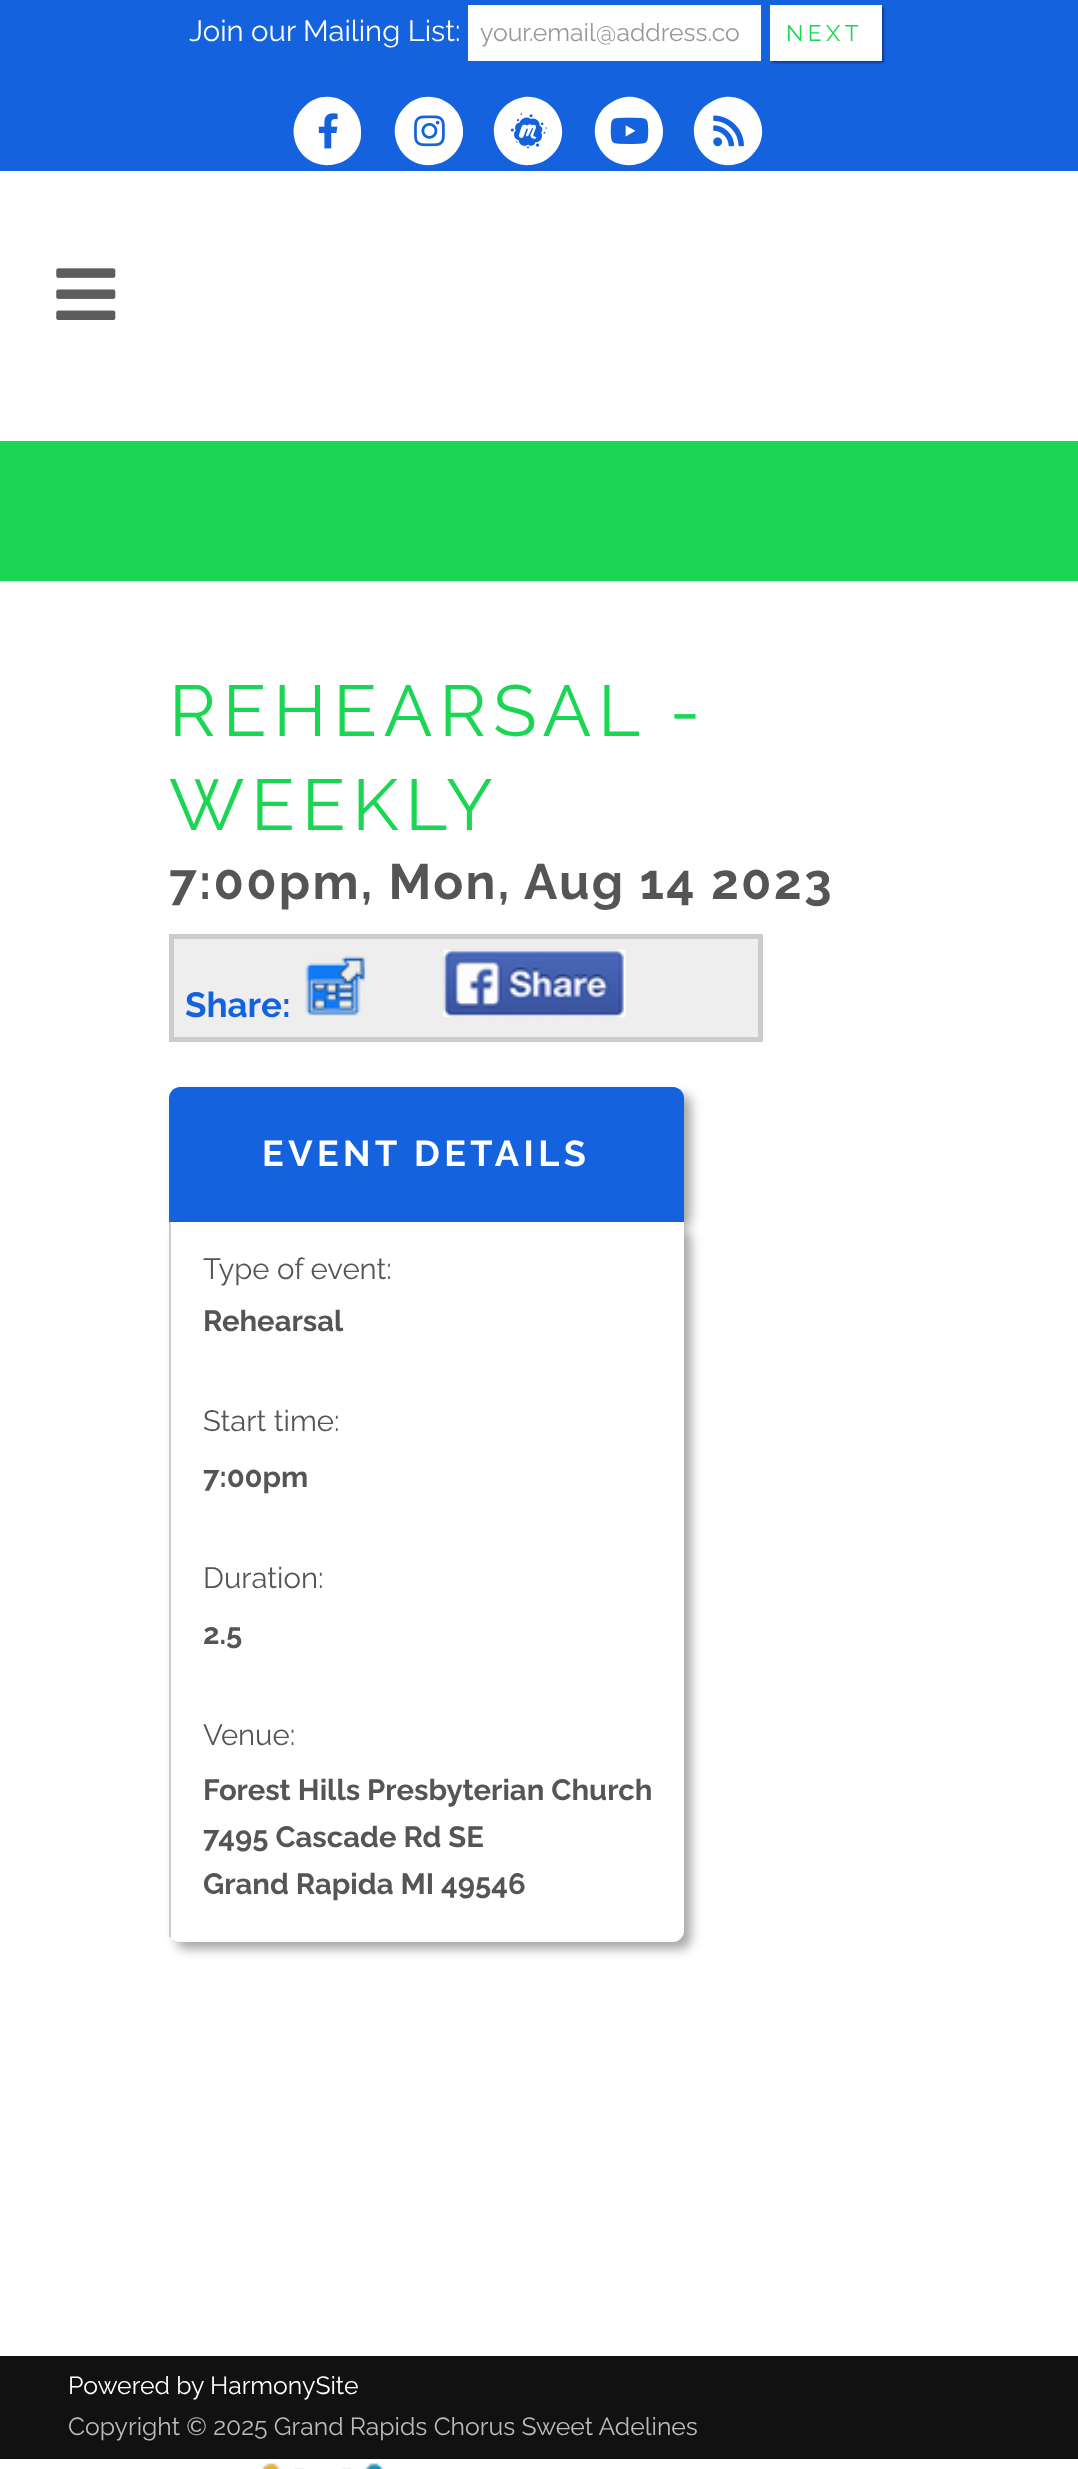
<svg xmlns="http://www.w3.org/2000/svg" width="1078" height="2469">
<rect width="100%" height="100%" fill="#fff"/>
<rect width="1078" height="171" fill="#1462dd"/>
<text x="189" y="41" style="font-family:Raleway;font-size:29.25px;fill:#fff">Join our Mailing List:</text>
<rect x="468" y="5" width="293" height="56" fill="#fff"/>
<text x="480" y="41" style="font-family:Raleway;font-size:24.75px;fill:#999">your.email@address.co</text>
<rect x="772" y="7" width="112" height="56" fill="#00000059" filter="blur(1px)"/>
<rect x="770" y="5" width="112" height="56" fill="#fff"/>
<text x="786" y="41" style="font-family:Raleway;font-size:22.5px;letter-spacing:4.5px;fill:#1ad653">NEXT</text>
<path d="M304 107c22-23 60-4 57 28c0 8-4 15-9 20c-6 6-13 9-21 10c-32 3-50-35-27-58z" fill="#fff"/>
<image x="318" y="113" width="20" height="36" href="media/1.png"/>
<path d="M405 107c22-23 61-4 58 28c-1 8-5 15-10 20c-6 6-13 9-21 10c-31 3-50-35-27-58z" fill="#fff"/>
<image x="414" y="115" width="31" height="32" href="media/2.png"/>
<path d="M504 107c5-5 13-9 20-10c32-3 51 36 28 58c-6 6-13 9-21 10c-31 3-50-35-27-58z" fill="#fff"/>
<image x="510" y="113" width="37" height="36" href="media/3.png"/>
<path d="M605 107c6-5 13-9 21-10c31-3 50 36 27 58c-5 6-13 9-20 10c-32 3-51-35-28-58z" fill="#fff"/>
<image x="610" y="117" width="39" height="27" href="media/4.png"/>
<path d="M704 107c6-5 13-9 21-10c31-3 50 36 27 58c-5 6-13 9-20 10c-32 3-51-35-28-58z" fill="#fff"/>
<image x="713" y="115" width="31" height="32" href="media/5.png"/>
<image x="56" y="268" width="60" height="52" href="media/6.png"/>
<rect y="441" width="1078" height="140" fill="#1ad653"/>
<text x="169" y="736" style="font-family:Raleway;font-size:72px;letter-spacing:6.75px;fill:#1ad653">REHEARSAL -</text>
<text x="169" y="830" style="font-family:Raleway;font-size:72px;letter-spacing:6.75px;fill:#1ad653">WEEKLY</text>
<text x="169" y="899" style="font-family:Raleway;font-size:49.5px;font-weight:bold;letter-spacing:2.25px;fill:#555">7:00pm, Mon, Aug 14 2023</text>
<rect x="171.5" y="936.5" width="589" height="103" fill="#eee" stroke="#ccc" stroke-width="5"/>
<text x="185" y="1017" style="font-family:Raleway;font-size:35px;font-weight:bold;fill:#1462dd">Share:</text>
<image x="305" y="955" width="61" height="61" href="media/7.png"/>
<image x="443" y="949" width="183" height="68" href="media/8.png"/>
<rect x="176" y="1094" width="515" height="135" rx="11" fill="#00000059" filter="blur(5.5px)"/>
<path d="M180 1087h493c6 0 11 5 11 11v124h-515v-124c0-6 5-11 11-11z" fill="#1462dd"/>
<text x="262" y="1166" style="font-family:Raleway;font-size:36px;font-weight:bold;letter-spacing:4.5px;fill:#fff">EVENT DETAILS</text>
<rect x="176" y="1229" width="515" height="720" rx="11" fill="#00000059" filter="blur(5.5px)"/>
<path d="M169 1222h515v709c0 6-5 11-11 11h-493c-6 0-11-5-11-11z" fill="#fff"/>
<rect x="169" y="1222" width="2" height="715" fill="#ccc"/>
<text x="203" y="1279" style="font-family:Raleway;font-size:29.25px;fill:#555">Type of event:</text>
<text x="203" y="1331" style="font-family:Raleway;font-size:29.25px;font-weight:bold;fill:#555">Rehearsal</text>
<text x="203" y="1431" style="font-family:Raleway;font-size:29.25px;fill:#555">Start time:</text>
<text x="203" y="1487" style="font-family:Raleway;font-size:29.25px;font-weight:bold;fill:#555">7:00pm</text>
<text x="203" y="1588" style="font-family:Raleway;font-size:29.25px;fill:#555">Duration:</text>
<text x="203" y="1644" style="font-family:Raleway;font-size:29.25px;font-weight:bold;fill:#555">2.5</text>
<text x="203" y="1745" style="font-family:Raleway;font-size:29.25px;fill:#555">Venue:</text>
<text x="203" y="1800" style="font-family:Raleway;font-size:29.25px;font-weight:bold;fill:#555">Forest Hills Presbyterian Church</text>
<text x="203" y="1847" style="font-family:Raleway;font-size:29.25px;font-weight:bold;fill:#555">7495 Cascade Rd SE</text>
<text x="203" y="1894" style="font-family:Raleway;font-size:29.25px;font-weight:bold;fill:#555">Grand Rapida MI 49546</text>
<rect y="2356" width="1078" height="103" fill="#111"/>
<text x="68" y="2394" style="font-family:Raleway;font-size:24.75px;fill:#fff">Powered by HarmonySite</text>
<text x="68" y="2435" style="font-family:Raleway;font-size:24.75px;fill:#bbb">Copyright © 2025 Grand Rapids Chorus Sweet Adelines</text>
<image x="262" y="2463" width="122" height="6" href="media/9.png"/>
</svg>
